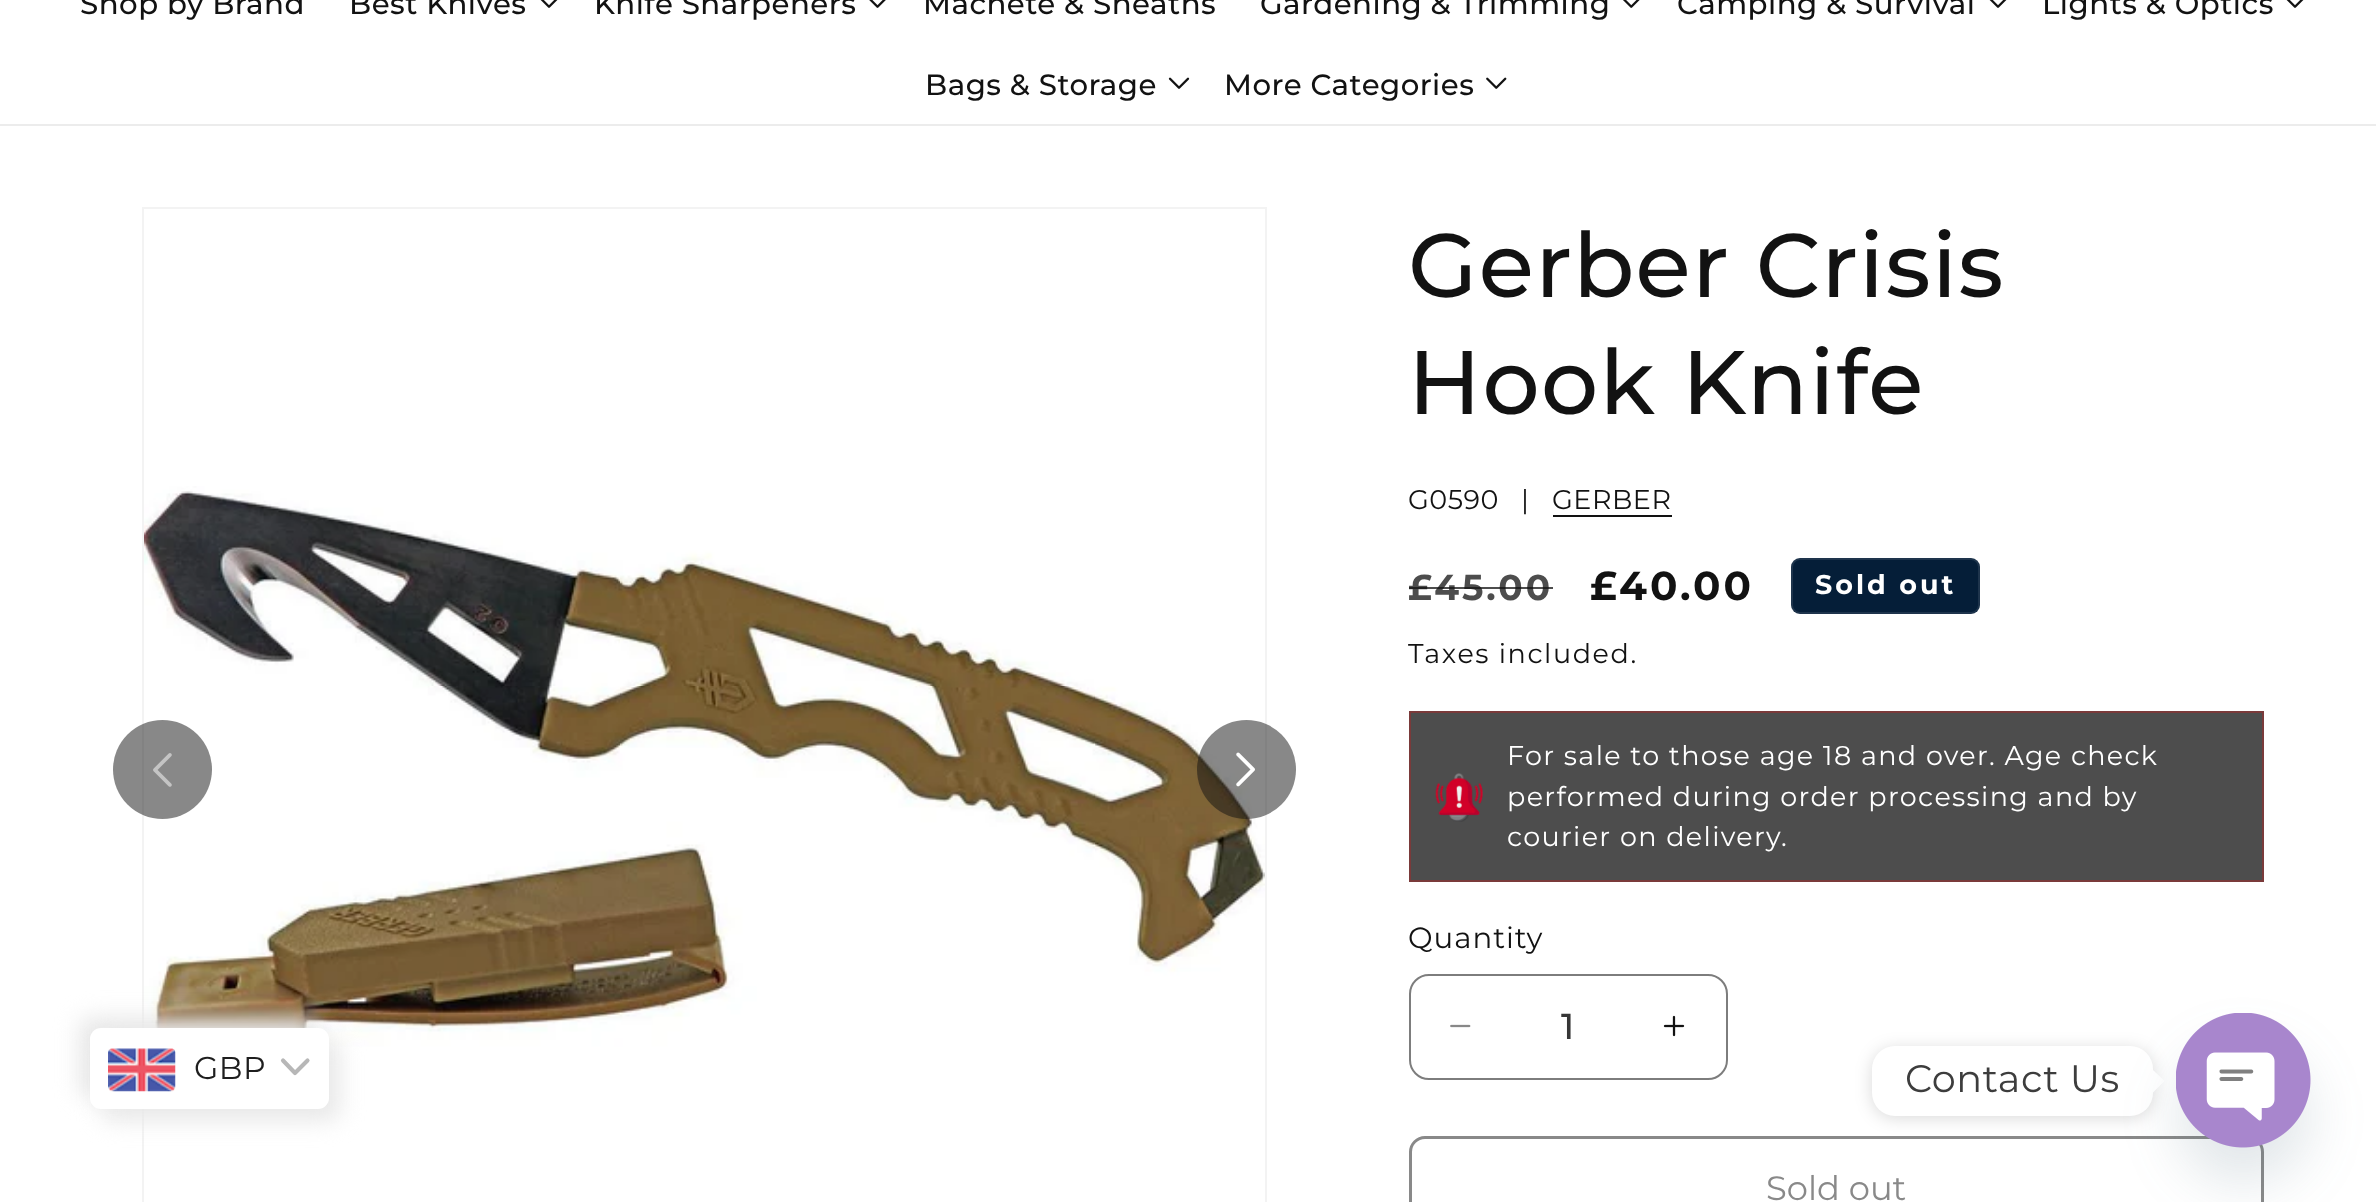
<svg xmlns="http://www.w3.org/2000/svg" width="2376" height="1202">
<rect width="100%" height="100%" fill="#fff"/>
<rect y="124" width="2376" height="2" fill="#ececec"/>
<text x="80" y="14" style="font-family:Montserrat;font-size:29.25px;font-weight:500;letter-spacing:0.5px;fill:#121212">Shop by Brand</text>
<text x="349" y="14" style="font-family:Montserrat;font-size:29.25px;font-weight:500;letter-spacing:0.5px;fill:#121212">Best Knives</text>
<image x="540" y="0" width="18" height="8" href="media/1.png"/>
<text x="594" y="14" style="font-family:Montserrat;font-size:29.25px;font-weight:500;letter-spacing:0.5px;fill:#121212">Knife Sharpeners</text>
<image x="869" y="0" width="17" height="8" href="media/2.png"/>
<text x="923" y="14" style="font-family:Montserrat;font-size:29.25px;font-weight:500;letter-spacing:0.5px;fill:#121212">Machete &amp; Sheaths</text>
<text x="1260" y="14" style="font-family:Montserrat;font-size:29.25px;font-weight:500;letter-spacing:0.5px;fill:#121212">Gardening &amp; Trimming</text>
<image x="1623" y="0" width="17" height="8" href="media/3.png"/>
<text x="1677" y="14" style="font-family:Montserrat;font-size:29.25px;font-weight:500;letter-spacing:0.5px;fill:#121212">Camping &amp; Survival</text>
<image x="1989" y="0" width="18" height="8" href="media/1.png"/>
<text x="2042" y="14" style="font-family:Montserrat;font-size:29.25px;font-weight:500;letter-spacing:0.5px;fill:#121212">Lights &amp; Optics</text>
<image x="2286" y="0" width="18" height="8" href="media/1.png"/>
<text x="925" y="95" style="font-family:Montserrat;font-size:29.25px;font-weight:500;letter-spacing:0.5px;fill:#121212">Bags &amp; Storage</text>
<image x="1168" y="77" width="22" height="12" href="media/4.png"/>
<text x="1224" y="95" style="font-family:Montserrat;font-size:29.25px;font-weight:500;letter-spacing:0.5px;fill:#121212">More Categories</text>
<image x="1486" y="77" width="21" height="12" href="media/5.png"/>
<rect x="143" y="208" width="1123" height="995" fill="none" stroke="#f3f3f3" stroke-width="2"/>
<image x="144" y="486" width="1121" height="568" href="media/7.png"/>
<rect x="79" y="1017" width="238" height="81" rx="11" fill="#e8e8e8" filter="blur(11px)"/>
<rect x="101" y="1040" width="239" height="81" rx="11" fill="#e8e8e8" filter="blur(11px)"/>
<rect x="90" y="1028" width="239" height="81" rx="11" fill="#fff"/>
<image x="108" y="1048" width="68" height="44" href="media/6.png"/>
<text x="194" y="1079" style="font-family:Montserrat;font-size:31.5px;letter-spacing:0.5px;fill:#1e1e1e">GBP</text>
<path d="M283 1060.5l12 12.5l12.5-12.5" fill="none" stroke="#b7b7b7" stroke-width="4.1" stroke-linecap="round" stroke-linejoin="round"/>
<circle cx="162.5" cy="769.5" r="49.5" fill="#12121280"/>
<image x="153" y="753" width="19" height="34" href="media/8.png"/>
<circle cx="1246.5" cy="769.5" r="49.5" fill="#12121280"/>
<image x="1236" y="752" width="19" height="35" href="media/9.png"/>
<text x="1408" y="297" style="font-family:Montserrat;font-size:90px;font-weight:500;letter-spacing:1.35px;fill:#121212">Gerber Crisis</text>
<text x="1408" y="414" style="font-family:Montserrat;font-size:90px;font-weight:500;letter-spacing:1.35px;fill:#121212">Hook Knife</text>
<text x="1408" y="509" style="font-family:Montserrat;font-size:27px;letter-spacing:0.5px;fill:#121212">G0590</text>
<text x="1521" y="509" style="font-family:Montserrat;font-size:27px;letter-spacing:0.5px;fill:#121212">|</text>
<text x="1552" y="509" style="font-family:Montserrat;font-size:27px;letter-spacing:0.5px;fill:#121212">GERBER</text>
<rect x="1553" y="515" width="119" height="2" fill="#121212"/>
<text x="1408" y="600" style="font-family:Montserrat;font-size:36px;font-weight:bold;letter-spacing:3px;fill:#4d4d4d">£45.00</text>
<rect x="1409" y="587" width="144" height="2" fill="#121212bf"/>
<text x="1590" y="600" style="font-family:Montserrat;font-size:40.5px;font-weight:bold;letter-spacing:3px;fill:#121212">£40.00</text>
<rect x="1791" y="558" width="189" height="56" rx="9" fill="#051e38"/>
<rect x="1792" y="559" width="187" height="54" rx="8" fill="none" stroke="#ffffff1a" stroke-width="2"/>
<text x="1815" y="594" style="font-family:Montserrat;font-size:27px;font-weight:bold;letter-spacing:3px;fill:#fff">Sold out</text>
<text x="1408" y="663" style="font-family:Montserrat;font-size:27px;letter-spacing:1.6px;fill:#121212">Taxes included.</text>
<rect x="1410" y="712" width="853" height="169" fill="#4d4d4d" stroke="#7a3a3a" stroke-width="2"/>
<text x="1507" y="765" style="font-family:Montserrat;font-size:27px;letter-spacing:1.35px;fill:#fff">For sale to those age 18 and over. Age check</text>
<image x="1435" y="773" width="48" height="49" href="media/10.png"/>
<text x="1507" y="806" style="font-family:Montserrat;font-size:27px;letter-spacing:1.35px;fill:#fff">performed during order processing and by</text>
<text x="1507" y="846" style="font-family:Montserrat;font-size:27px;letter-spacing:1.35px;fill:#fff">courier on delivery.</text>
<text x="1408" y="948" style="font-family:Montserrat;font-size:29.25px;letter-spacing:1px;fill:#121212">Quantity</text>
<image x="1450" y="1024" width="21" height="4" href="media/11.png"/>
<image x="1663" y="1015" width="22" height="22" href="media/12.png"/>
<rect x="1410" y="975" width="317" height="104" rx="19" fill="none" stroke="#7d7d7d" stroke-width="2"/>
<text x="1561" y="1039" style="font-family:Montserrat;font-size:36px;font-weight:500;fill:#363636">1</text>
<rect x="1410.5" y="1137.5" width="852" height="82" rx="14.5" fill="none" stroke="#898989" stroke-width="3"/>
<text x="1766" y="1200" style="font-family:Montserrat;font-size:33.75px;fill:#898989">Sold out</text>
<rect x="1872" y="1049" width="281" height="69" rx="23" fill="#00000026" filter="blur(8.5px)"/>
<rect x="1872" y="1046" width="281" height="70" rx="23" fill="#fff"/>
<text x="1905" y="1092" style="font-family:Montserrat;font-size:38.25px;letter-spacing:0.5px;fill:#3d3d3d">Contact Us</text>
<path d="M2153 1092.5v-22.5l11.5 11z" fill="#fff"/>
<rect x="2176" y="1049" width="135" height="135" rx="67.5" fill="#49687e29" filter="blur(27px)"/>
<image x="2176" y="1013" width="135" height="135" href="media/13.png"/>
</svg>
